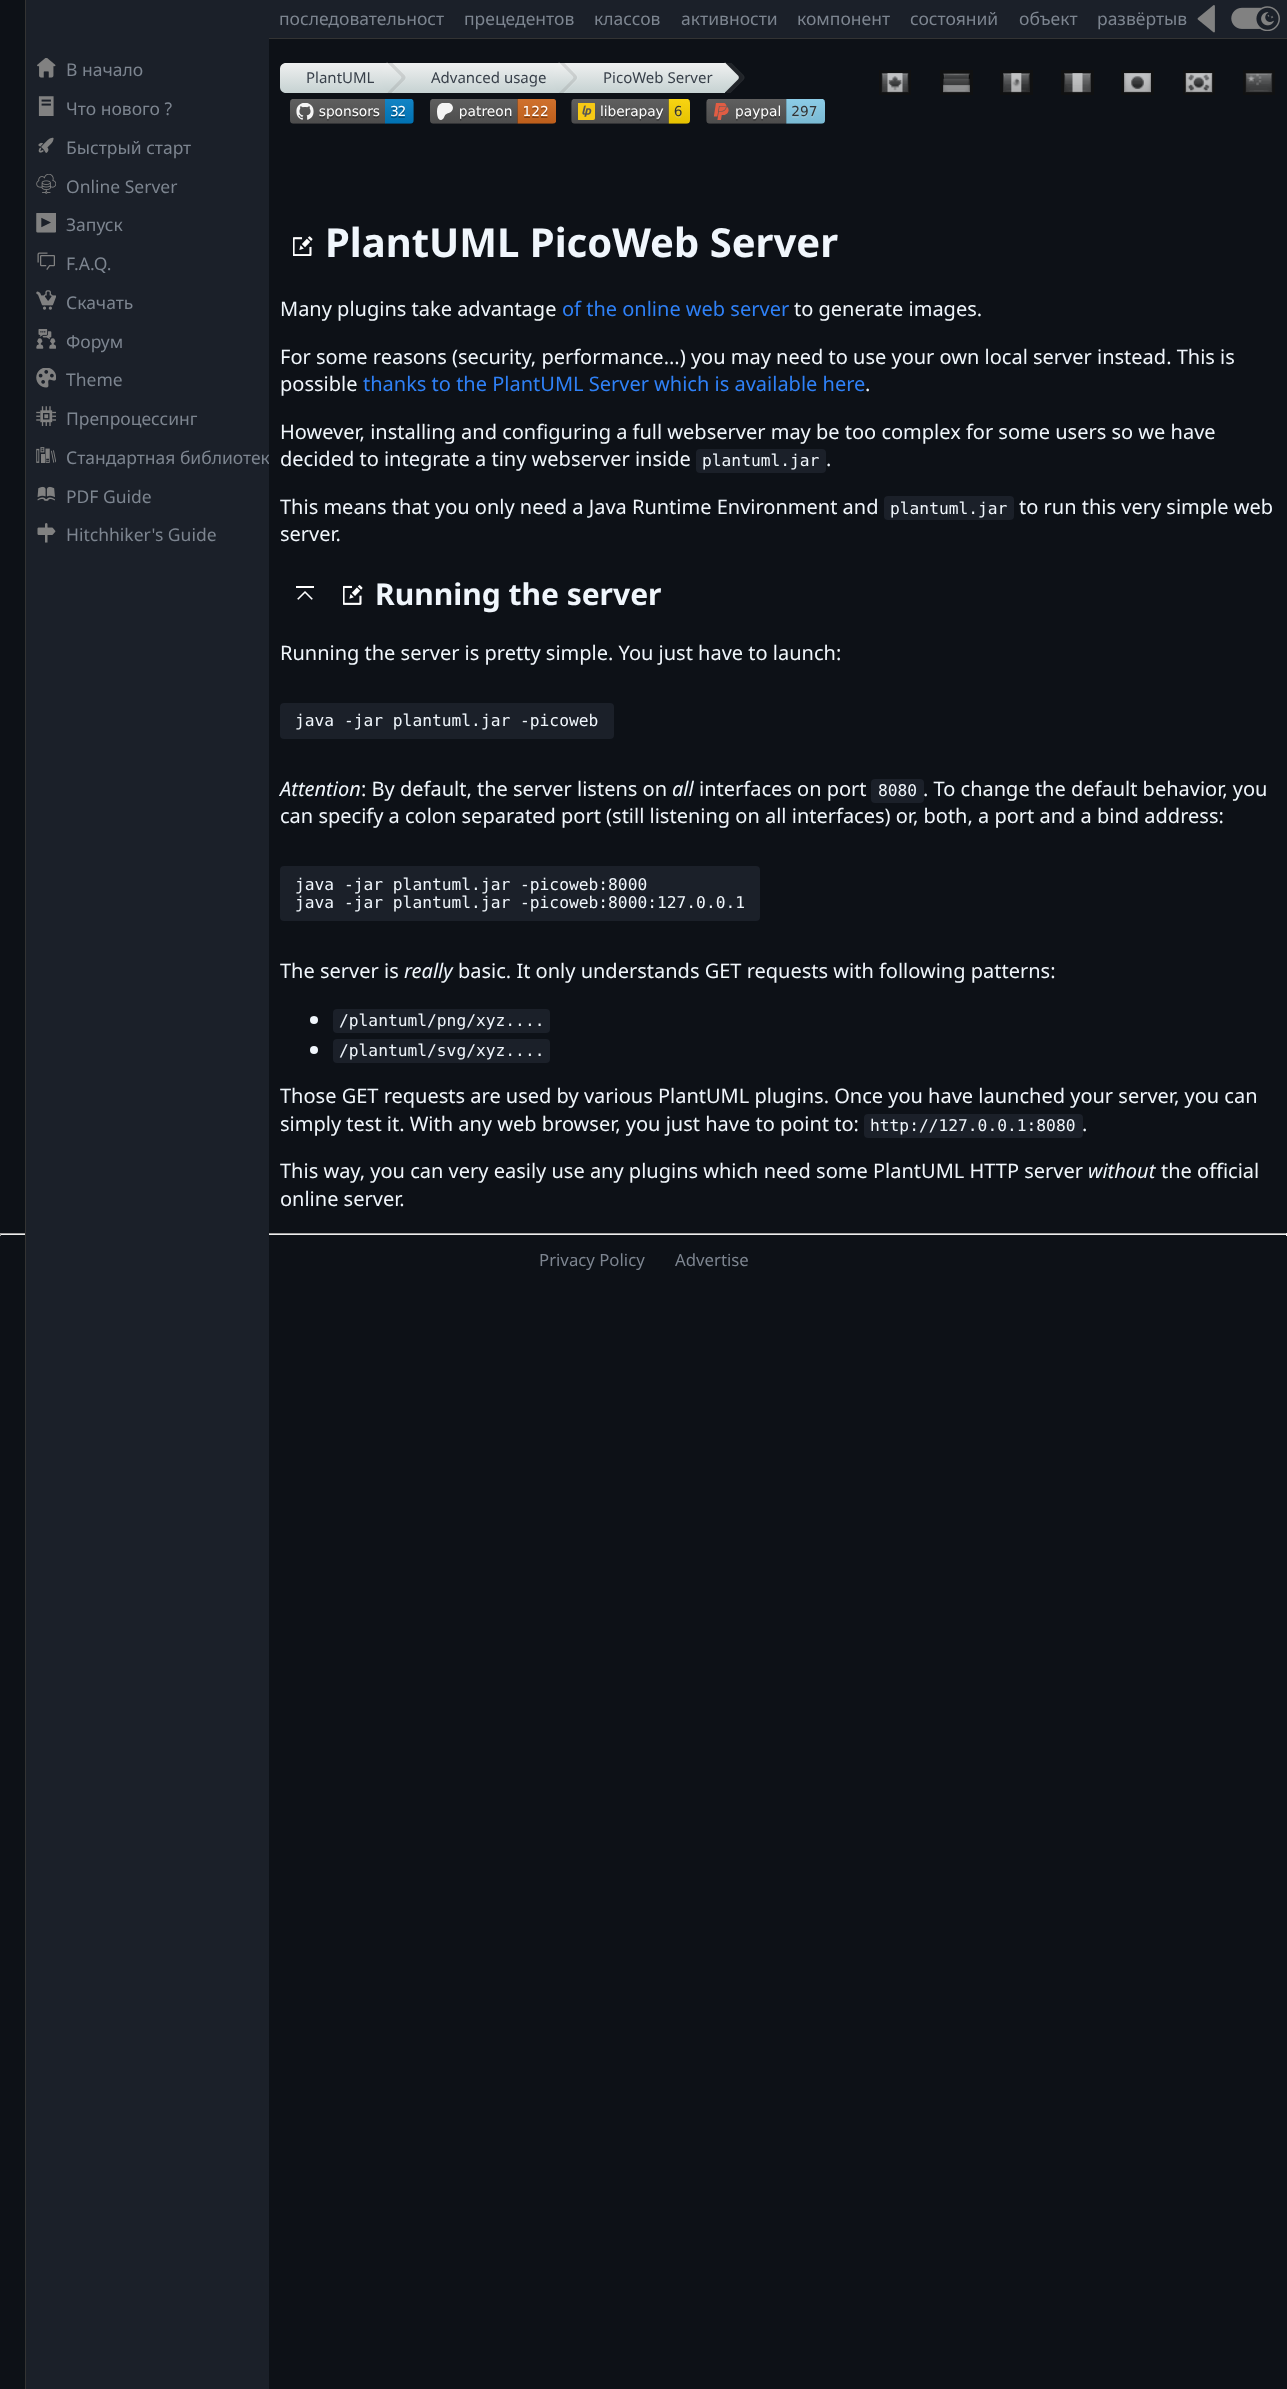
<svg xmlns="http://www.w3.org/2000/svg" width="1287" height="2389">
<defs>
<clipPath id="clip1"><rect x="26" y="50" width="243" height="504"/></clipPath>
<linearGradient id="g1" gradientUnits="userSpaceOnUse" x1="334" y1="62" x2="334" y2="93"><stop offset="0" stop-color="#f0f1f1"/><stop offset="1" stop-color="#c6d2d2"/></linearGradient>
<linearGradient id="g2" gradientUnits="userSpaceOnUse" x1="473" y1="62" x2="473" y2="93"><stop offset="0" stop-color="#f0f1f1"/><stop offset="1" stop-color="#c6d2d2"/></linearGradient>
<linearGradient id="g3" gradientUnits="userSpaceOnUse" x1="387" y1="63" x2="387" y2="92"><stop offset="0" stop-color="#f0f1f1"/><stop offset="1" stop-color="#c6d2d2"/></linearGradient>
<linearGradient id="g4" gradientUnits="userSpaceOnUse" x1="642" y1="62" x2="642" y2="93"><stop offset="0" stop-color="#f0f1f1"/><stop offset="1" stop-color="#c6d2d2"/></linearGradient>
<linearGradient id="g5" gradientUnits="userSpaceOnUse" x1="559" y1="63" x2="559" y2="92"><stop offset="0" stop-color="#f0f1f1"/><stop offset="1" stop-color="#c6d2d2"/></linearGradient>
<linearGradient id="g6" gradientUnits="userSpaceOnUse" x1="725" y1="63" x2="725" y2="92"><stop offset="0" stop-color="#f0f1f1"/><stop offset="1" stop-color="#c6d2d2"/></linearGradient>
</defs>
<rect width="100%" height="100%" fill="#0d1117"/>
<rect x="269" width="1018" height="38" fill="#1b2029"/>
<rect x="269" y="38" width="1018" height="1" fill="#333"/>
<text x="279" y="25" style="font-family:Noto Sans;font-size:17.5px;fill:#7d8590">последовательност</text>
<text x="464" y="25" style="font-family:Noto Sans;font-size:17.5px;fill:#7d8590">прецедентов</text>
<text x="594" y="25" style="font-family:Noto Sans;font-size:17.5px;fill:#7d8590">классов</text>
<text x="681" y="25" style="font-family:Noto Sans;font-size:17.5px;fill:#7d8590">активности</text>
<text x="797" y="25" style="font-family:Noto Sans;font-size:17.5px;fill:#7d8590">компонент</text>
<text x="910" y="25" style="font-family:Noto Sans;font-size:17.5px;fill:#7d8590">состояний</text>
<text x="1019" y="25" style="font-family:Noto Sans;font-size:17.5px;fill:#7d8590">объект</text>
<text x="1097" y="25" style="font-family:Noto Sans;font-size:17.5px;fill:#7d8590">развёртыв</text>
<image x="1197" y="5" width="18" height="28" href="media/1.png"/>
<image x="1231" y="6" width="49" height="25" href="media/2.png"/>
<rect y="1233" width="1287" height="1" fill="#9f9f9f"/>
<rect x="1286" y="1233" width="1" height="3" fill="#eee"/>
<rect y="1234" width="1287" height="1" fill="#eee"/>
<rect x="26" width="243" height="2389" fill="#1b2029"/>
<rect x="25" width="1" height="2389" fill="#333"/>
<image x="37" y="58" width="19" height="20" href="media/3.png"/>
<text x="66" y="76" style="font-family:Noto Sans;font-size:17.5px;fill:#7d8590">В начало</text>
<image x="38" y="96" width="16" height="20" href="media/4.png"/>
<text x="66" y="115" style="font-family:Noto Sans;font-size:17.5px;fill:#7d8590">Что нового ?</text>
<image x="38" y="137" width="16" height="16" href="media/5.png"/>
<text x="66" y="154" style="font-family:Noto Sans;font-size:17.5px;fill:#7d8590">Быстрый старт</text>
<image x="36" y="174" width="20" height="20" href="media/6.png"/>
<text x="66" y="193" style="font-family:Noto Sans;font-size:17.5px;fill:#7d8590">Online Server</text>
<image x="36" y="213" width="20" height="20" href="media/7.png"/>
<text x="66" y="231" style="font-family:Noto Sans;font-size:17.5px;fill:#7d8590">Запуск</text>
<image x="37" y="252" width="18" height="18" href="media/8.png"/>
<text x="66" y="270" style="font-family:Noto Sans;font-size:17.5px;fill:#7d8590">F.A.Q.</text>
<image x="36" y="290" width="20" height="20" href="media/9.png"/>
<text x="66" y="309" style="font-family:Noto Sans;font-size:17.5px;fill:#7d8590">Скачать</text>
<image x="36" y="329" width="20" height="20" href="media/10.png"/>
<text x="66" y="348" style="font-family:Noto Sans;font-size:17.5px;fill:#7d8590">Форум</text>
<image x="36" y="368" width="20" height="20" href="media/11.png"/>
<text x="66" y="386" style="font-family:Noto Sans;font-size:17.5px;fill:#7d8590">Theme</text>
<image x="36" y="406" width="20" height="20" href="media/12.png"/>
<text x="66" y="425" style="font-family:Noto Sans;font-size:17.5px;fill:#7d8590">Препроцессинг</text>
<image x="36" y="447" width="20" height="16" href="media/13.png"/>
<g clip-path="url(#clip1)">
<text x="66" y="464" style="font-family:Noto Sans;font-size:17.5px;fill:#7d8590">Стандартная библиотек</text>
</g>
<image x="37" y="486" width="18" height="15" href="media/14.png"/>
<text x="66" y="503" style="font-family:Noto Sans;font-size:17.5px;fill:#7d8590">PDF Guide</text>
<image x="37" y="523" width="19" height="20" href="media/15.png"/>
<text x="66" y="541" style="font-family:Noto Sans;font-size:17.5px;fill:#7d8590">Hitchhiker's Guide</text>
<path d="M286 63h102v30h-102c-3.5 0-6-2.5-6-6v-18c0-3.5 2.5-6 6-6z" fill="url(#g1)"/>
<text x="306" y="83" style="font-family:Noto Sans;font-size:15px;fill:#373f49">PlantUML</text>
<rect x="388" y="63" width="171" height="30" fill="url(#g2)"/>
<path d="M405.5 80c1.5-1.5 1.5-3.5 0-5l-11.5-12h-6l12.5 13c1 1 1 2 0 3l-12.5 13l1 1h4z" fill="#ffffff1a"/>
<path d="M388 93h3.5l13-13c1.5-1.5 1.5-3.5 0-5l-12-12h-5l13 13c1 1 1 2 0 3l-13 13.5z" fill="#0000001a"/>
<path d="M387 62.5l13.5 13.5c1 1 1 2 0 3l-13.5 13.5c-8-8.5-8-21.5 0-30z" fill="url(#g3)"/>
<text x="431" y="83" style="font-family:Noto Sans;font-size:15px;fill:#373f49">Advanced usage</text>
<rect x="559" y="63" width="166" height="30" fill="url(#g4)"/>
<path d="M561 93h3.5l13-13c1.5-1.5 1.5-3.5 0-5l-12-12h-5.5v.5l12.5 12.5c1 1 1 2 0 3l-12.5 12.5z" fill="#ffffff1a"/>
<path d="M576 80c1.5-1.5 1.5-3.5 0-5l-11.5-12h-5l13 13c1 1 1 2 0 3l-13.5 13.5l.5 .5h4z" fill="#0000001a"/>
<path d="M559 62.5l13.5 13.5c1 1 1 2 0 3l-13.5 13.5c-8.5-8.5-8.5-21.5 0-30z" fill="url(#g5)"/>
<text x="603" y="83" style="font-family:Noto Sans;font-size:15px;fill:#373f49">PicoWeb Server</text>
<path d="M727 93h3.5l13-13c1.5-1.5 1.5-3.5 0-5l-12-12h-5.5l-.5 .5l13 12.5c.5 1 .5 2 0 3l-13 12.5z" fill="#25292e"/>
<path d="M742 80c1.5-1.5 1.5-3.5 0-5l-11.5-12h-5l13 13c.5 1 .5 2 0 3l-13.5 13.5l.5 .5h4z" fill="#0000001a"/>
<path d="M725 62.5l13.5 13.5c.5 1 .5 2 0 3l-13.5 13.5c-8.5-8.5-8.5-21.5 0-30z" fill="url(#g6)"/>
<image x="290" y="99" width="124" height="25" href="media/16.png"/>
<image x="430" y="99" width="126" height="25" href="media/17.png"/>
<image x="571" y="99" width="119" height="25" href="media/18.png"/>
<image x="706" y="99" width="119" height="25" href="media/19.png"/>
<image x="881" y="73" width="28" height="20" href="media/20.png"/>
<rect x="880.5" y="71.5" width="29" height="22" fill="none" stroke="#111111bf" stroke-width="3"/>
<image x="943" y="73" width="27" height="20" href="media/21.png"/>
<rect x="941.5" y="71.5" width="30" height="22" fill="none" stroke="#111111bf" stroke-width="3"/>
<image x="1003" y="73" width="27" height="20" href="media/22.png"/>
<rect x="1001.5" y="71.5" width="30" height="22" fill="none" stroke="#111111bf" stroke-width="3"/>
<image x="1064" y="73" width="27" height="20" href="media/23.png"/>
<rect x="1062.5" y="71.5" width="30" height="22" fill="none" stroke="#111111bf" stroke-width="3"/>
<image x="1124" y="73" width="27" height="20" href="media/24.png"/>
<rect x="1122.5" y="71.5" width="30" height="22" fill="none" stroke="#111111bf" stroke-width="3"/>
<image x="1185" y="73" width="28" height="20" href="media/25.png"/>
<rect x="1184.5" y="71.5" width="29" height="22" fill="none" stroke="#111111bf" stroke-width="3"/>
<image x="1245" y="73" width="28" height="20" href="media/26.png"/>
<rect x="1244.5" y="71.5" width="29" height="22" fill="none" stroke="#111111bf" stroke-width="3"/>
<image x="293" y="236" width="20" height="20" href="media/27.png"/>
<text x="325" y="257" style="font-family:Noto Sans;font-size:40px;font-weight:bold;fill:#f0f6fc">PlantUML PicoWeb Server</text>
<text x="280" y="316" style="font-family:Noto Sans;font-size:20px;fill:#f0f6fc">Many plugins take advantage</text>
<text x="562" y="316" style="font-family:Noto Sans;font-size:20px;fill:#2f81f7">of the online web server</text>
<text x="794" y="316" style="font-family:Noto Sans;font-size:20px;fill:#f0f6fc">to generate images.</text>
<text x="280" y="364" style="font-family:Noto Sans;font-size:20px;fill:#f0f6fc">For some reasons (security, performance...) you may need to use your own local server instead. This is</text>
<text x="280" y="391" style="font-family:Noto Sans;font-size:20px;fill:#f0f6fc">possible</text>
<text x="363" y="391" style="font-family:Noto Sans;font-size:20px;fill:#2f81f7">thanks to the PlantUML Server which is available here</text>
<text x="865" y="391" style="font-family:Noto Sans;font-size:20px;fill:#f0f6fc">.</text>
<text x="280" y="439" style="font-family:Noto Sans;font-size:20px;fill:#f0f6fc">However, installing and configuring a full webserver may be too complex for some users so we have</text>
<text x="280" y="466" style="font-family:Noto Sans;font-size:20px;fill:#f0f6fc">decided to integrate a tiny webserver inside</text>
<rect x="696" y="449" width="130" height="24" rx="4" fill="#1b2029"/>
<text x="702" y="466" style="font-family:DejaVu Sans Mono;font-size:16.25px;fill:#f0f6fc">plantuml.jar</text>
<text x="826" y="466" style="font-family:Noto Sans;font-size:20px;fill:#f0f6fc">.</text>
<text x="280" y="514" style="font-family:Noto Sans;font-size:20px;fill:#f0f6fc">This means that you only need a Java Runtime Environment and</text>
<rect x="884" y="496" width="130" height="24" rx="4" fill="#1b2029"/>
<text x="890" y="514" style="font-family:DejaVu Sans Mono;font-size:16.25px;fill:#f0f6fc">plantuml.jar</text>
<text x="1019" y="514" style="font-family:Noto Sans;font-size:20px;fill:#f0f6fc">to run this very simple web</text>
<text x="280" y="541" style="font-family:Noto Sans;font-size:20px;fill:#f0f6fc">server.</text>
<image x="296" y="586" width="18" height="14" href="media/28.png"/>
<image x="343" y="585" width="20" height="20" href="media/29.png"/>
<text x="375" y="605" style="font-family:Noto Sans;font-size:30px;font-weight:bold;fill:#f0f6fc">Running the server</text>
<text x="280" y="660" style="font-family:Noto Sans;font-size:20px;fill:#f0f6fc">Running the server is pretty simple. You just have to launch:</text>
<rect x="280" y="703" width="334" height="36" rx="4" fill="#1b2029"/>
<text x="295" y="726" style="font-family:DejaVu Sans Mono;font-size:16.25px;fill:#f0f6fc">java -jar plantuml.jar -picoweb</text>
<text x="280" y="796" style="font-family:Noto Sans;font-size:20px;font-style:italic;fill:#f0f6fc">Attention</text>
<text x="361" y="796" style="font-family:Noto Sans;font-size:20px;fill:#f0f6fc">: By default, the server listens on</text>
<text x="672" y="796" style="font-family:Noto Sans;font-size:20px;font-style:italic;fill:#f0f6fc">all</text>
<text x="699" y="796" style="font-family:Noto Sans;font-size:20px;fill:#f0f6fc">interfaces on port</text>
<rect x="871" y="779" width="53" height="24" rx="4" fill="#1b2029"/>
<text x="878" y="796" style="font-family:DejaVu Sans Mono;font-size:16.25px;fill:#f0f6fc">8080</text>
<text x="923" y="796" style="font-family:Noto Sans;font-size:20px;fill:#f0f6fc">. To change the default behavior, you</text>
<text x="280" y="823" style="font-family:Noto Sans;font-size:20px;fill:#f0f6fc">can specify a colon separated port (still listening on all interfaces) or, both, a port and a bind address:</text>
<rect x="280" y="866" width="480" height="55" rx="4" fill="#1b2029"/>
<text x="295" y="890" style="font-family:DejaVu Sans Mono;font-size:16.25px;fill:#f0f6fc">java -jar plantuml.jar -picoweb:8000</text>
<text x="295" y="908" style="font-family:DejaVu Sans Mono;font-size:16.25px;fill:#f0f6fc">java -jar plantuml.jar -picoweb:8000:127.0.0.1</text>
<text x="280" y="978" style="font-family:Noto Sans;font-size:20px;fill:#f0f6fc">The server is</text>
<text x="404" y="978" style="font-family:Noto Sans;font-size:20px;font-style:italic;fill:#f0f6fc">really</text>
<text x="458" y="978" style="font-family:Noto Sans;font-size:20px;fill:#f0f6fc">basic. It only understands GET requests with following patterns:</text>
<circle cx="314" cy="1020" r="4" fill="#f0f6fc"/>
<rect x="333" y="1009" width="217" height="24" rx="4" fill="#1b2029"/>
<text x="339" y="1026" style="font-family:DejaVu Sans Mono;font-size:16.25px;fill:#f0f6fc">/plantuml/png/xyz....</text>
<circle cx="314" cy="1050" r="4" fill="#f0f6fc"/>
<rect x="333" y="1039" width="217" height="24" rx="4" fill="#1b2029"/>
<text x="339" y="1056" style="font-family:DejaVu Sans Mono;font-size:16.25px;fill:#f0f6fc">/plantuml/svg/xyz....</text>
<text x="280" y="1103" style="font-family:Noto Sans;font-size:20px;fill:#f0f6fc">Those GET requests are used by various PlantUML plugins. Once you have launched your server, you can</text>
<text x="280" y="1131" style="font-family:Noto Sans;font-size:20px;fill:#f0f6fc">simply test it. With any web browser, you just have to point to:</text>
<rect x="864" y="1114" width="219" height="24" rx="4" fill="#1b2029"/>
<text x="870" y="1131" style="font-family:DejaVu Sans Mono;font-size:16.25px;fill:#f0f6fc">http://127.0.0.1:8080</text>
<text x="1082" y="1131" style="font-family:Noto Sans;font-size:20px;fill:#f0f6fc">.</text>
<text x="280" y="1178" style="font-family:Noto Sans;font-size:20px;fill:#f0f6fc">This way, you can very easily use any plugins which need some PlantUML HTTP server</text>
<text x="1088" y="1178" style="font-family:Noto Sans;font-size:20px;font-style:italic;fill:#f0f6fc">without</text>
<text x="1161" y="1178" style="font-family:Noto Sans;font-size:20px;fill:#f0f6fc">the official</text>
<text x="280" y="1206" style="font-family:Noto Sans;font-size:20px;fill:#f0f6fc">online server.</text>
<rect y="1233" width="1" height="3" fill="#9f9f9f"/>
<text x="539" y="1266" style="font-family:Noto Sans;font-size:16.75px;fill:#7d8590">Privacy Policy</text>
<text x="675" y="1266" style="font-family:Noto Sans;font-size:16.75px;fill:#7d8590">Advertise</text>
</svg>
